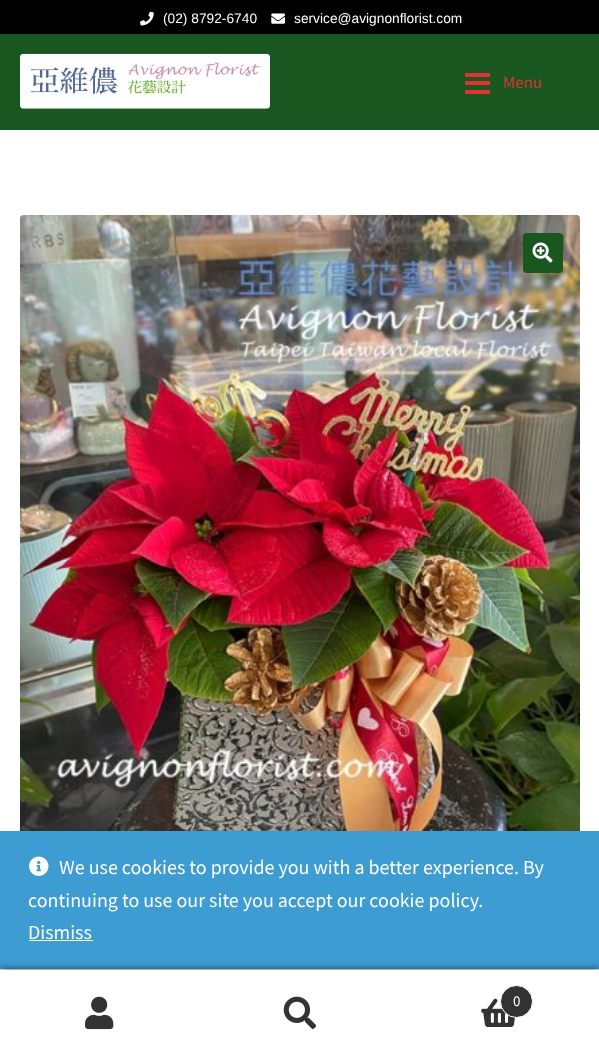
<svg xmlns="http://www.w3.org/2000/svg" width="599" height="1055">
<rect width="100%" height="100%" fill="#fff"/>
<rect width="599" height="34" fill="#000"/>
<image x="140" y="11" width="14" height="15" href="media/1.png"/>
<text x="163" y="23" style="font-family:Liberation Sans;font-size:13.75px;fill:#fff">(02) 8792-6740</text>
<image x="271" y="13" width="14" height="11" href="media/2.png"/>
<text x="294" y="23" style="font-family:Liberation Sans;font-size:13.75px;fill:#fff">service@avignonflorist.com</text>
<rect y="34" width="599" height="96" fill="#1a561f"/>
<image x="20" y="53" width="250" height="56" href="media/3.png"/>
<rect x="465" y="73" width="25" height="4" fill="#d33"/>
<rect x="465" y="81" width="25" height="4" fill="#d33"/>
<text x="503" y="88" style="font-family:Source Sans Pro;font-size:17px;fill:#d33">Menu</text>
<rect x="465" y="90" width="25" height="4" fill="#d33"/>
<image x="20" y="215" width="560" height="616" href="media/4.png"/>
<rect x="523" y="233" width="40" height="40" rx="4" fill="#1a561f"/>
<image x="532" y="242" width="21" height="21" href="media/5.png"/>
<rect y="831" width="599" height="138" fill="#3d9cd2"/>
<rect y="970" width="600" height="85" fill="#000000b3" filter="blur(4px)"/>
<rect y="970" width="599" height="85" fill="#fff"/>
<image x="85" y="996" width="29" height="34" href="media/6.png"/>
<image x="283" y="996" width="34" height="33" href="media/7.png"/>
<image x="481" y="998" width="34" height="29" href="media/8.png"/>
<circle cx="516.5" cy="1001.5" r="16" fill="#333" stroke="#fff"/>
<text x="513" y="1006" style="font-family:Source Sans Pro;font-size:15px;fill:#fff">0</text>
<image x="29" y="856" width="20" height="20" href="media/9.png"/>
<text x="59" y="874" style="font-family:Source Sans Pro;font-size:20px;fill:#fff">We use cookies to provide you with a better experience. By</text>
<text x="28" y="907" style="font-family:Source Sans Pro;font-size:20px;fill:#fff">continuing to use our site you accept our cookie policy.</text>
<text x="28" y="939" style="font-family:Source Sans Pro;font-size:20px;fill:#fff">Dismiss</text>
<rect x="29" y="940" width="64" height="1" fill="#fff"/>
</svg>
